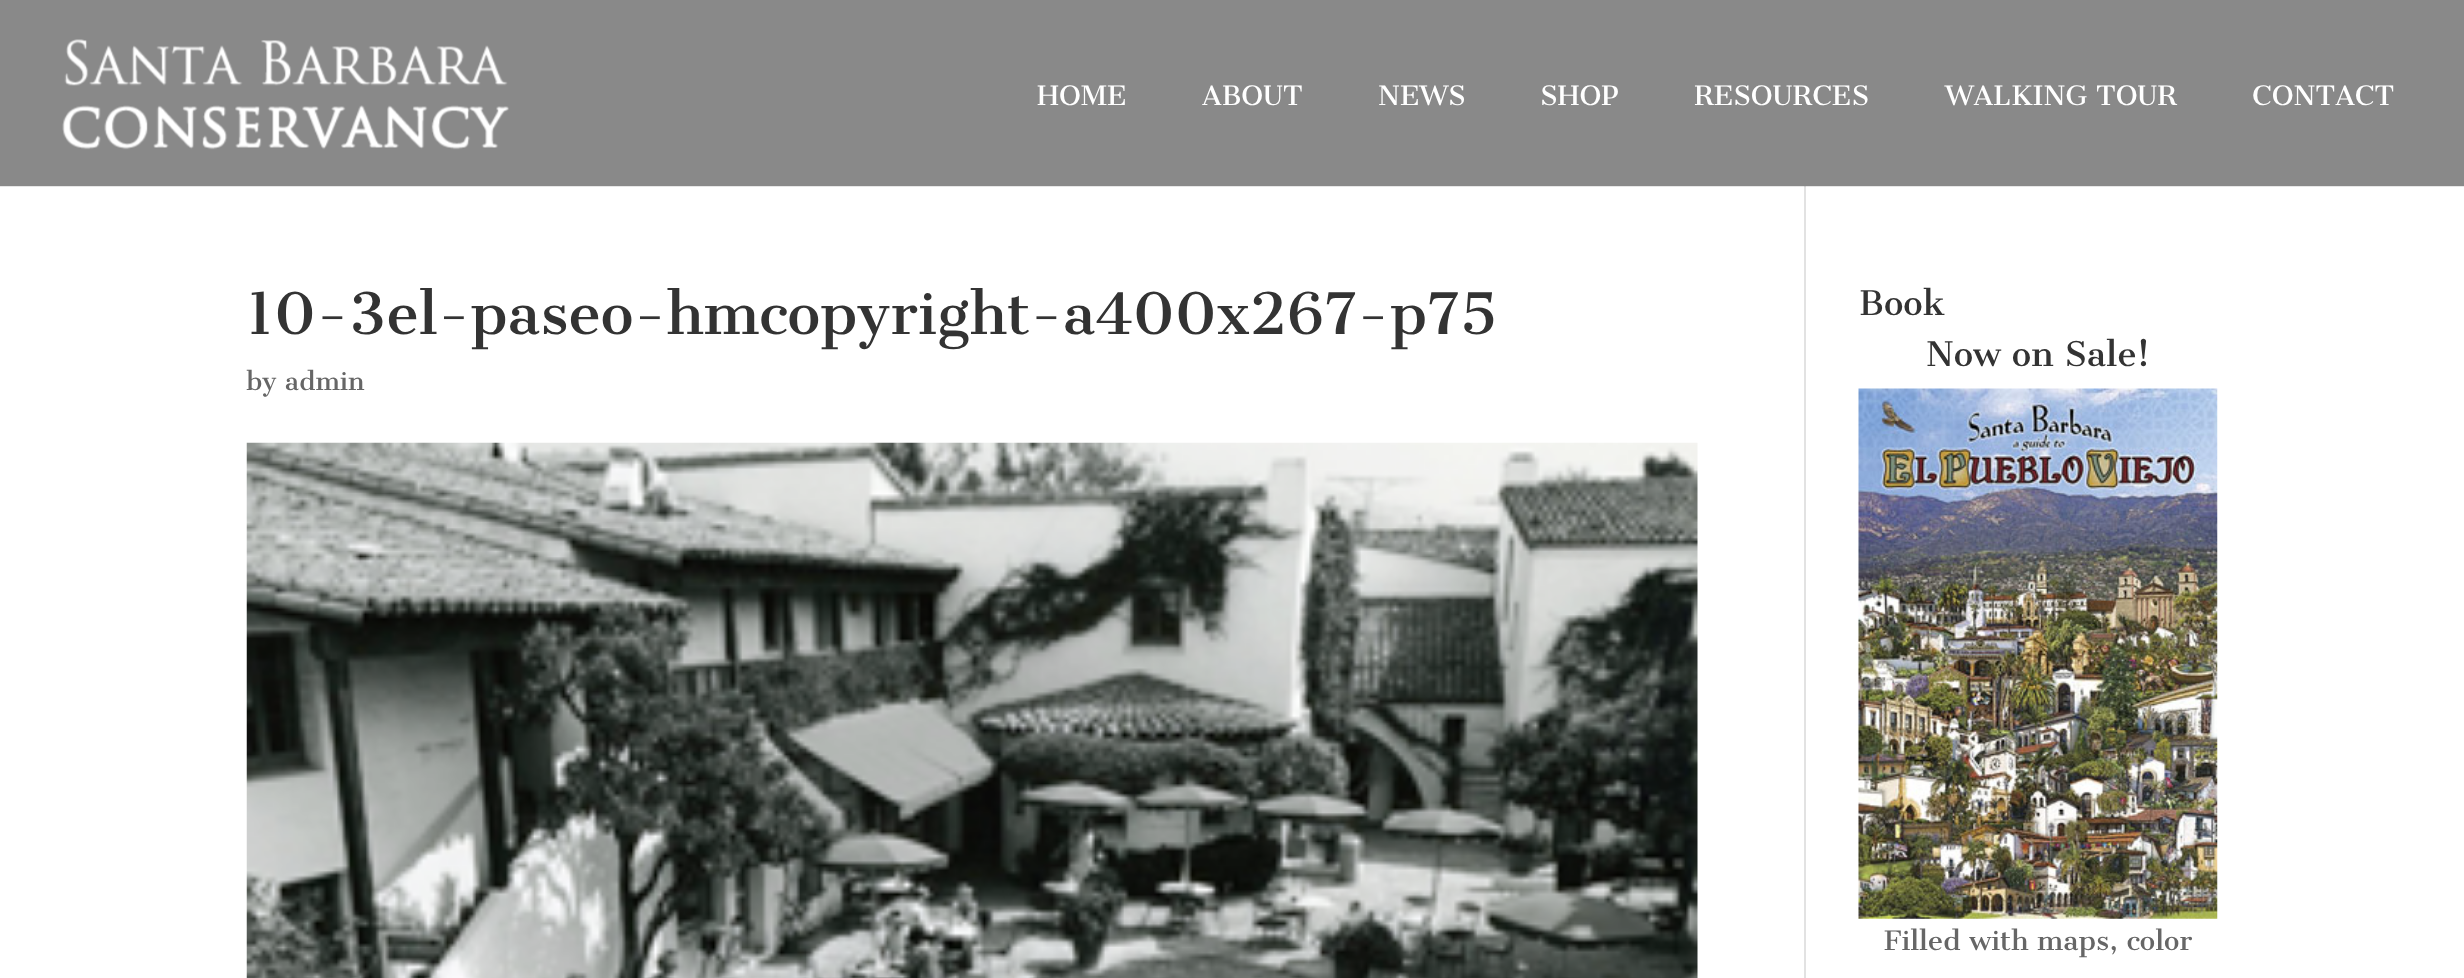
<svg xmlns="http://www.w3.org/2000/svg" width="2464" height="978">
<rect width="100%" height="100%" fill="#fff"/>
<rect width="2464" height="186" fill="#898989"/>
<image x="62" y="39" width="447" height="111" href="media/1.png"/>
<text x="1037" y="105" style="font-family:Cantata One;font-size:26.25px;fill:#fff">HOME</text>
<text x="1202" y="105" style="font-family:Cantata One;font-size:26.25px;fill:#fff">ABOUT</text>
<text x="1378" y="105" style="font-family:Cantata One;font-size:26.25px;fill:#fff">NEWS</text>
<text x="1540" y="105" style="font-family:Cantata One;font-size:26.25px;fill:#fff">SHOP</text>
<text x="1694" y="105" style="font-family:Cantata One;font-size:26.25px;fill:#fff">RESOURCES</text>
<text x="1945" y="105" style="font-family:Cantata One;font-size:26.25px;fill:#fff">WALKING TOUR</text>
<text x="2252" y="105" style="font-family:Cantata One;font-size:26.25px;fill:#fff">CONTACT</text>
<rect y="186" width="2464" height="1" fill="#e6e6e6"/>
<rect x="1804" y="186" width="2" height="792" fill="#e2e2e2"/>
<rect x="1804" y="186" width="2" height="1" fill="#cbcbcb"/>
<text x="246" y="334" style="font-family:Cantata One;font-size:56px;fill:#333">10-3el-paseo-hmcopyright-a400x267-p75</text>
<text x="246" y="390" style="font-family:Cantata One;font-size:24.5px;fill:#666">by admin</text>
<image x="246" y="442" width="1452" height="536" href="media/2.png"/>
<text x="1859" y="315" style="font-family:Cantata One;font-size:33.25px;fill:#333">Book</text>
<text x="1926" y="366" style="font-family:Cantata One;font-size:33.25px;fill:#333">Now on Sale!</text>
<image x="1858" y="388" width="360" height="531" href="media/3.png"/>
<text x="1884" y="950" style="font-family:Cantata One;font-size:26.25px;fill:#666">Filled with maps, color</text>
</svg>
